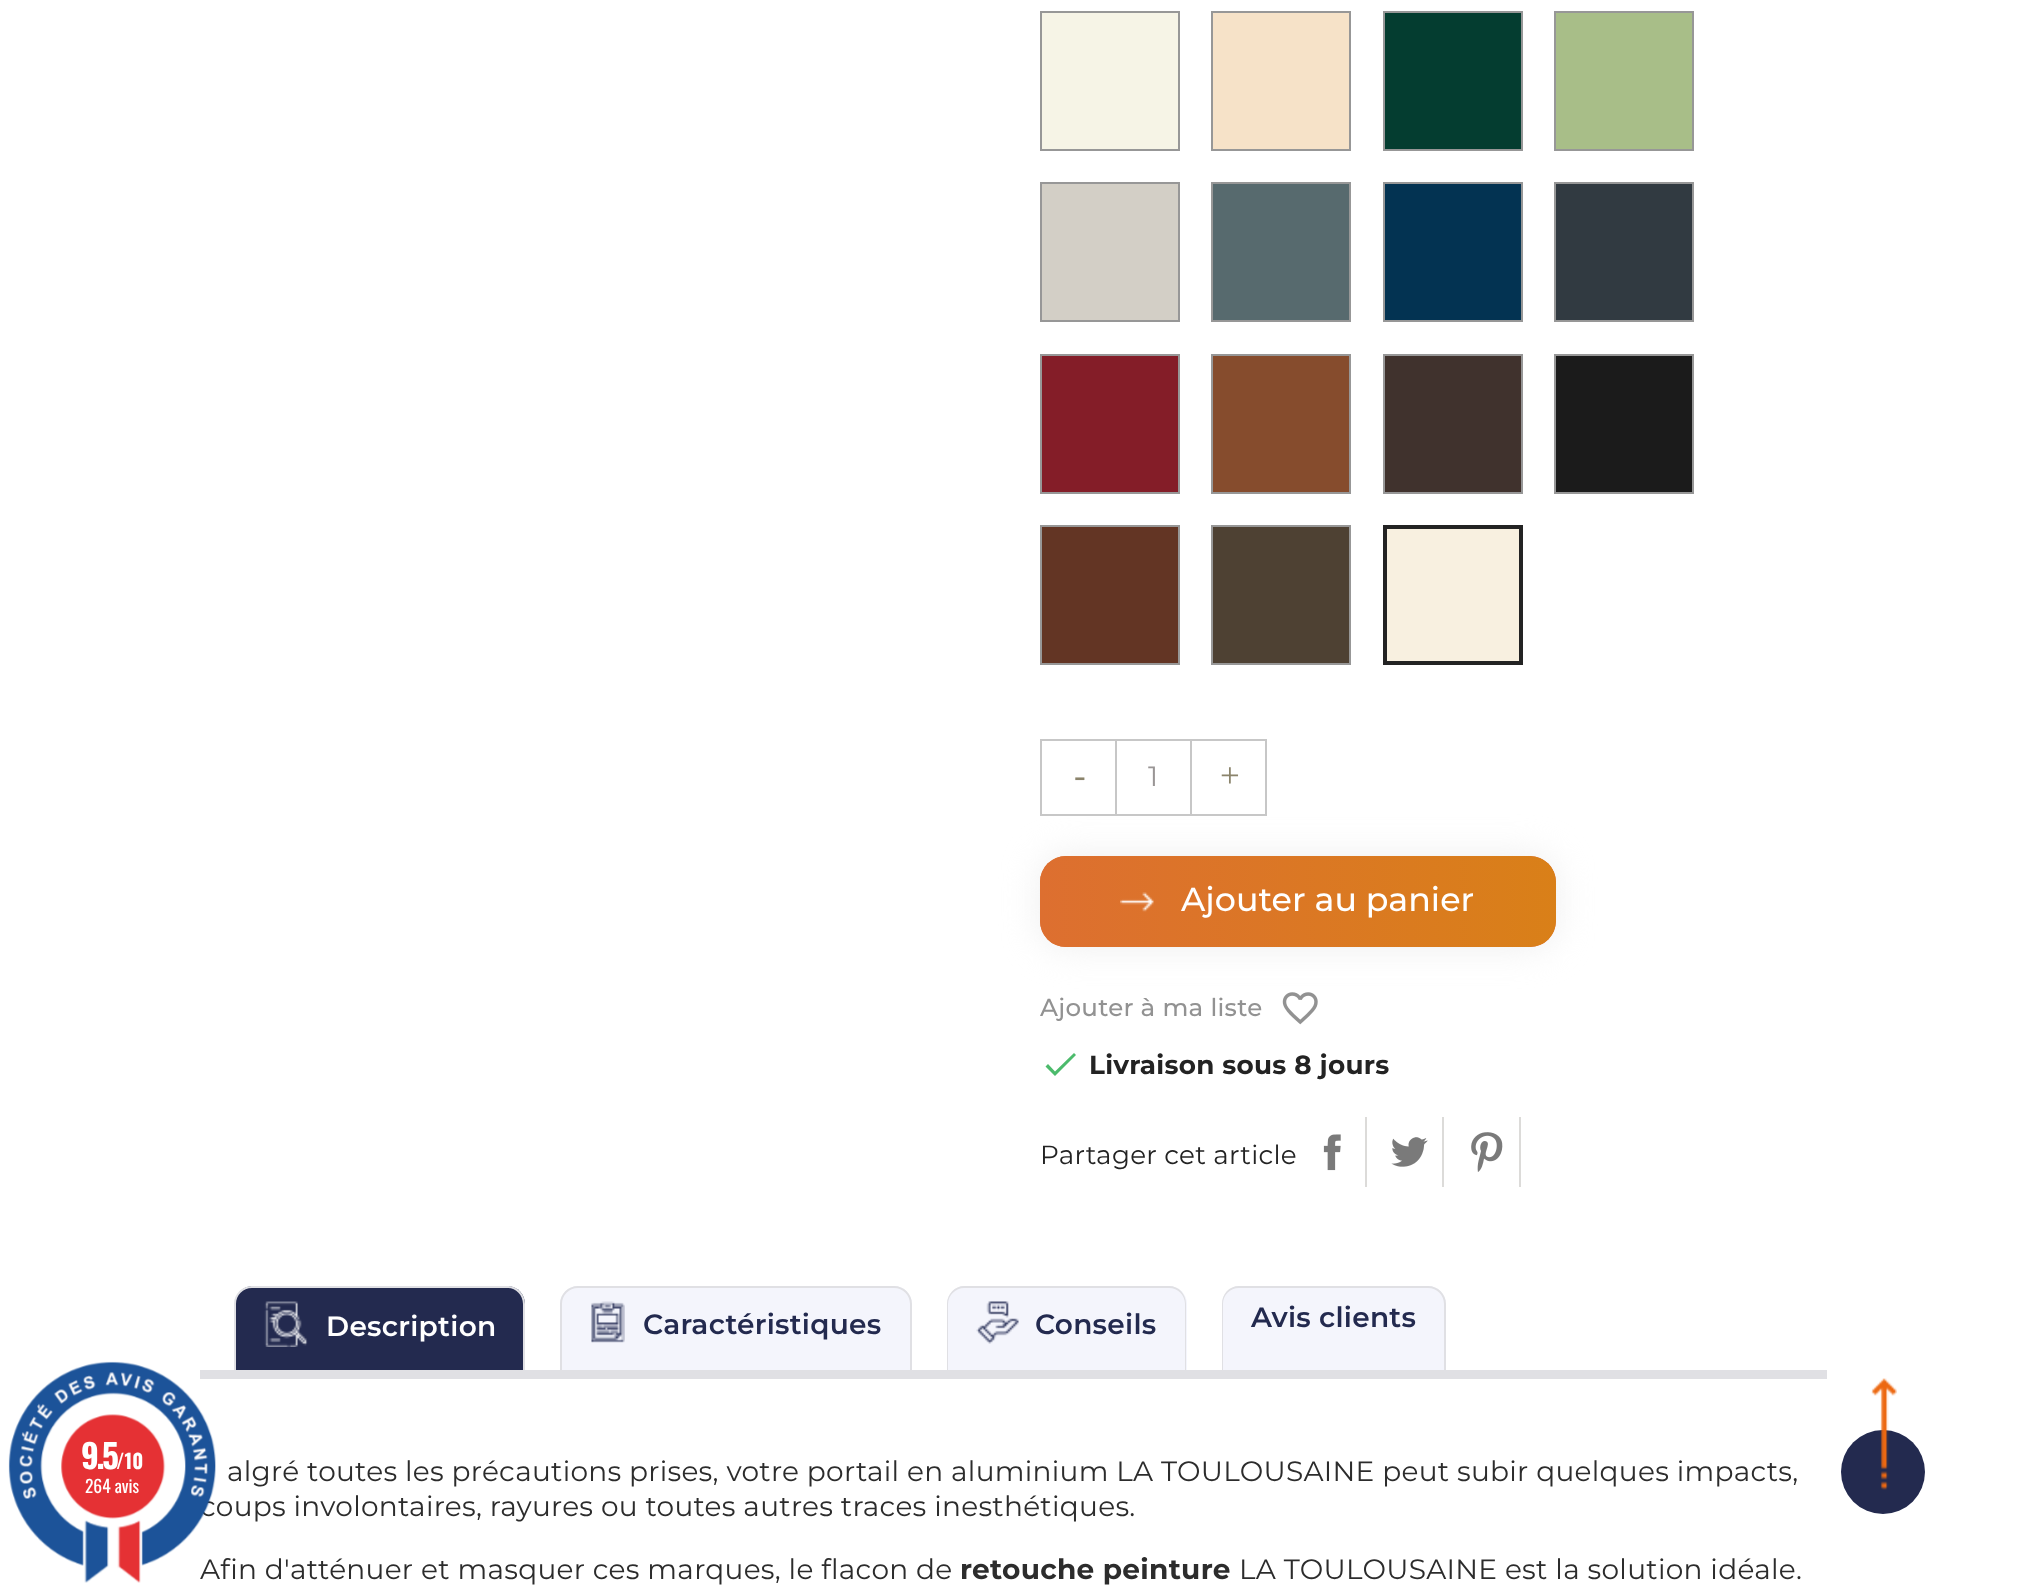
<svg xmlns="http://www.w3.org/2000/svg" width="2025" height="1591">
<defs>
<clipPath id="clip1"><rect x="1040" y="856" width="516" height="91" rx="26"/></clipPath>
<linearGradient id="g1" gradientUnits="userSpaceOnUse" x1="16" y1="901" x2="1041" y2="901"><stop offset="0" stop-color="#dd6f30"/><stop offset="0.51" stop-color="#d98018"/><stop offset="1" stop-color="#dd6f30"/></linearGradient>
<linearGradient id="g2" gradientUnits="userSpaceOnUse" x1="1041" y1="901" x2="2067" y2="901"><stop offset="0" stop-color="#dd6f30"/><stop offset="0.51" stop-color="#d98018"/><stop offset="1" stop-color="#dd6f30"/></linearGradient>
</defs>
<rect width="100%" height="100%" fill="#fff"/>
<rect x="200" y="1370" width="1627" height="9" fill="#e0e0e4"/>
<text x="200" y="1516" style="font-family:Montserrat;font-size:28px;letter-spacing:0.28px;fill:#2c2c2c">coups involontaires, rayures ou toutes autres traces inesthétiques.</text>
<text x="200" y="1579" style="font-family:Montserrat;font-size:28px;letter-spacing:0.28px;fill:#2c2c2c">Afin d'atténuer et masquer ces marques, le flacon de</text>
<image x="8" y="1361" width="208" height="222" href="media/1.png"/>
<text x="81" y="1469" style="font-family:Oswald;font-size:33.25px;font-weight:bold;letter-spacing:-2.5px;fill:#fff">9.5</text>
<text x="116" y="1469" style="font-family:Oswald;font-size:20px;font-weight:bold;fill:#fff">/10</text>
<text x="85" y="1493" style="font-family:Oswald;font-size:17.5px;fill:#fff">264 avis</text>
<rect x="1041" y="12" width="138" height="138" fill="#f6f4e6" stroke="#979797" stroke-width="2"/>
<rect x="1212" y="12" width="138" height="138" fill="#f6e2c8" stroke="#979797" stroke-width="2"/>
<rect x="1384" y="12" width="138" height="138" fill="#043d30" stroke="#979797" stroke-width="2"/>
<rect x="1555" y="12" width="138" height="138" fill="#a8be88" stroke="#979797" stroke-width="2"/>
<rect x="1041" y="183" width="138" height="138" fill="#d3cfc6" stroke="#979797" stroke-width="2"/>
<rect x="1212" y="183" width="138" height="138" fill="#576a6e" stroke="#979797" stroke-width="2"/>
<rect x="1384" y="183" width="138" height="138" fill="#033352" stroke="#979797" stroke-width="2"/>
<rect x="1555" y="183" width="138" height="138" fill="#313a41" stroke="#979797" stroke-width="2"/>
<rect x="1041" y="355" width="138" height="138" fill="#841d28" stroke="#979797" stroke-width="2"/>
<rect x="1212" y="355" width="138" height="138" fill="#864c2d" stroke="#979797" stroke-width="2"/>
<rect x="1384" y="355" width="138" height="138" fill="#40322d" stroke="#979797" stroke-width="2"/>
<rect x="1555" y="355" width="138" height="138" fill="#1b1b1b" stroke="#979797" stroke-width="2"/>
<rect x="1041" y="526" width="138" height="138" fill="#633524" stroke="#979797" stroke-width="2"/>
<rect x="1212" y="526" width="138" height="138" fill="#4e4133" stroke="#979797" stroke-width="2"/>
<rect x="1385" y="527" width="136" height="136" fill="#f8f0e0" stroke="#232323" stroke-width="4"/>
<image x="1282" y="992" width="36" height="33" href="media/3.png"/>
<rect x="1040" y="856" width="516" height="91" rx="26" fill="#eee" filter="blur(17.5px)"/>
<rect x="1041" y="740" width="225" height="75" fill="none" stroke="#c7c7c7" stroke-width="2"/>
<text x="1148" y="786" style="font-family:Montserrat;font-size:28px;fill:#999595">1</text>
<rect x="1041" y="740" width="75" height="75" fill="none" stroke="#c7c7c7" stroke-width="2"/>
<text x="1074" y="787" style="font-family:Liberation Serif;font-size:35px;fill:#8b846c">-</text>
<rect x="1191" y="740" width="75" height="75" fill="none" stroke="#c7c7c7" stroke-width="2"/>
<text x="1220" y="787" style="font-family:Liberation Serif;font-size:35px;fill:#8b846c">+</text>
<rect x="1040" y="856" width="516" height="91" rx="26" fill="#dd6f30"/>
<g clip-path="url(#clip1)">
<rect x="1040" y="875" width="1" height="53" fill="url(#g1)"/>
<path d="M1041 856h489c14.5 0 26 11.5 26 26v39c0 14.5-11.5 26-26 26h-489z" fill="url(#g2)"/>
</g>
<image x="1120" y="892" width="34" height="20" href="media/2.png"/>
<text x="1181" y="911" style="font-family:Montserrat;font-size:33.25px;font-weight:500;fill:#fff">Ajouter au panier</text>
<text x="1040" y="1016" style="font-family:Montserrat;font-size:24.5px;font-weight:500;letter-spacing:0.28px;fill:#929292">Ajouter à ma liste</text>
<path d="M1055 1071.5l19-18.5l2 2l-21 21l-9.5-9.5l2.5-2.5z" fill="#4cbb6c"/>
<text x="1089" y="1074" style="font-family:Montserrat;font-size:26.25px;font-weight:bold;letter-spacing:0.28px;fill:#232323">Livraison sous 8 jours</text>
<text x="1040" y="1164" style="font-family:Montserrat;font-size:26.25px;letter-spacing:0.28px;fill:#232323">Partager cet article</text>
<image x="1323" y="1134" width="18" height="37" href="media/4.png"/>
<rect x="1365" y="1117" width="2" height="70" fill="#dcdbd9"/>
<image x="1391" y="1137" width="37" height="30" href="media/5.png"/>
<rect x="1442" y="1117" width="2" height="70" fill="#dcdbd9"/>
<image x="1471" y="1132" width="32" height="40" href="media/6.png"/>
<rect x="1519" y="1117" width="2" height="70" fill="#dcdbd9"/>
<path d="M253 1286h254c10 0 18 8 18 18v66h-290v-66c0-10 8-18 18-18z" fill="#232a4f"/>
<path d="M252 1286h256c9 0 17 8 17 18v66h-291v-66c0-10 8-18 18-18zm0 2h256c8 0 15 7 15 16v66h-287v-66c0-9 7-16 16-16z" fill="#e0e0e4" fill-rule="evenodd"/>
<image x="264" y="1301" width="44" height="46" href="media/7.png"/>
<text x="326" y="1336" style="font-family:Montserrat;font-size:28px;font-weight:600;letter-spacing:0.28px;fill:#fff">Description</text>
<path d="M578 1286h316c10 0 18 8 18 18v66h-352v-66c0-10 8-18 18-18z" fill="#f4f5fc"/>
<path d="M578 1286h316c10 0 18 8 18 18v66h-352v-66c0-10 8-18 18-18zm0 2h316c9 0 16 7 16 16v66h-348v-66c0-9 7-16 16-16z" fill="#e0e0e4" fill-rule="evenodd"/>
<image x="591" y="1301" width="34" height="42" href="media/8.png"/>
<text x="643" y="1334" style="font-family:Montserrat;font-size:28px;font-weight:600;letter-spacing:0.28px;fill:#232a4f">Caractéristiques</text>
<path d="M965 1286h204c10 0 18 8 18 18v66h-240v-66c0-10 8-18 18-18z" fill="#f4f5fc"/>
<path d="M964 1286h205c10 0 17 8 17 18v66h-239v-66c0-10 8-18 17-18zm0 2h205c9 0 16 7 16 16v66h-237v-66c0-9 8-16 16-16z" fill="#e0e0e4" fill-rule="evenodd"/>
<image x="976" y="1301" width="43" height="43" href="media/9.png"/>
<text x="1035" y="1334" style="font-family:Montserrat;font-size:28px;font-weight:600;letter-spacing:0.28px;fill:#232a4f">Conseils</text>
<path d="M1240 1286h188c10 0 18 8 18 18v66h-224v-66c0-10 8-18 18-18z" fill="#f4f5fc"/>
<path d="M1239 1286h189c10 0 18 8 18 18v66h-224v-66c0-10 7-18 17-18zm0 2h189c9 0 16 7 16 16v66h-221v-66c0-9 7-16 16-16z" fill="#e0e0e4" fill-rule="evenodd"/>
<text x="1251" y="1327" style="font-family:Montserrat;font-size:28px;font-weight:600;letter-spacing:0.28px;fill:#232a4f">Avis clients</text>
<text x="227" y="1481" style="font-family:Montserrat;font-size:28px;letter-spacing:0.28px;fill:#2c2c2c">algré toutes les précautions prises, votre portail en aluminium LA TOULOUSAINE peut subir quelques impacts,</text>
<text x="960" y="1579" style="font-family:Montserrat;font-size:28px;font-weight:bold;letter-spacing:0.28px;fill:#2c2c2c">retouche peinture</text>
<text x="1239" y="1579" style="font-family:Montserrat;font-size:28px;letter-spacing:0.28px;fill:#2c2c2c">LA TOULOUSAINE est la solution idéale.</text>
<circle cx="1883" cy="1472" r="42" fill="#232a4f"/>
<image x="1871" y="1378" width="26" height="112" href="media/10.png"/>
</svg>
